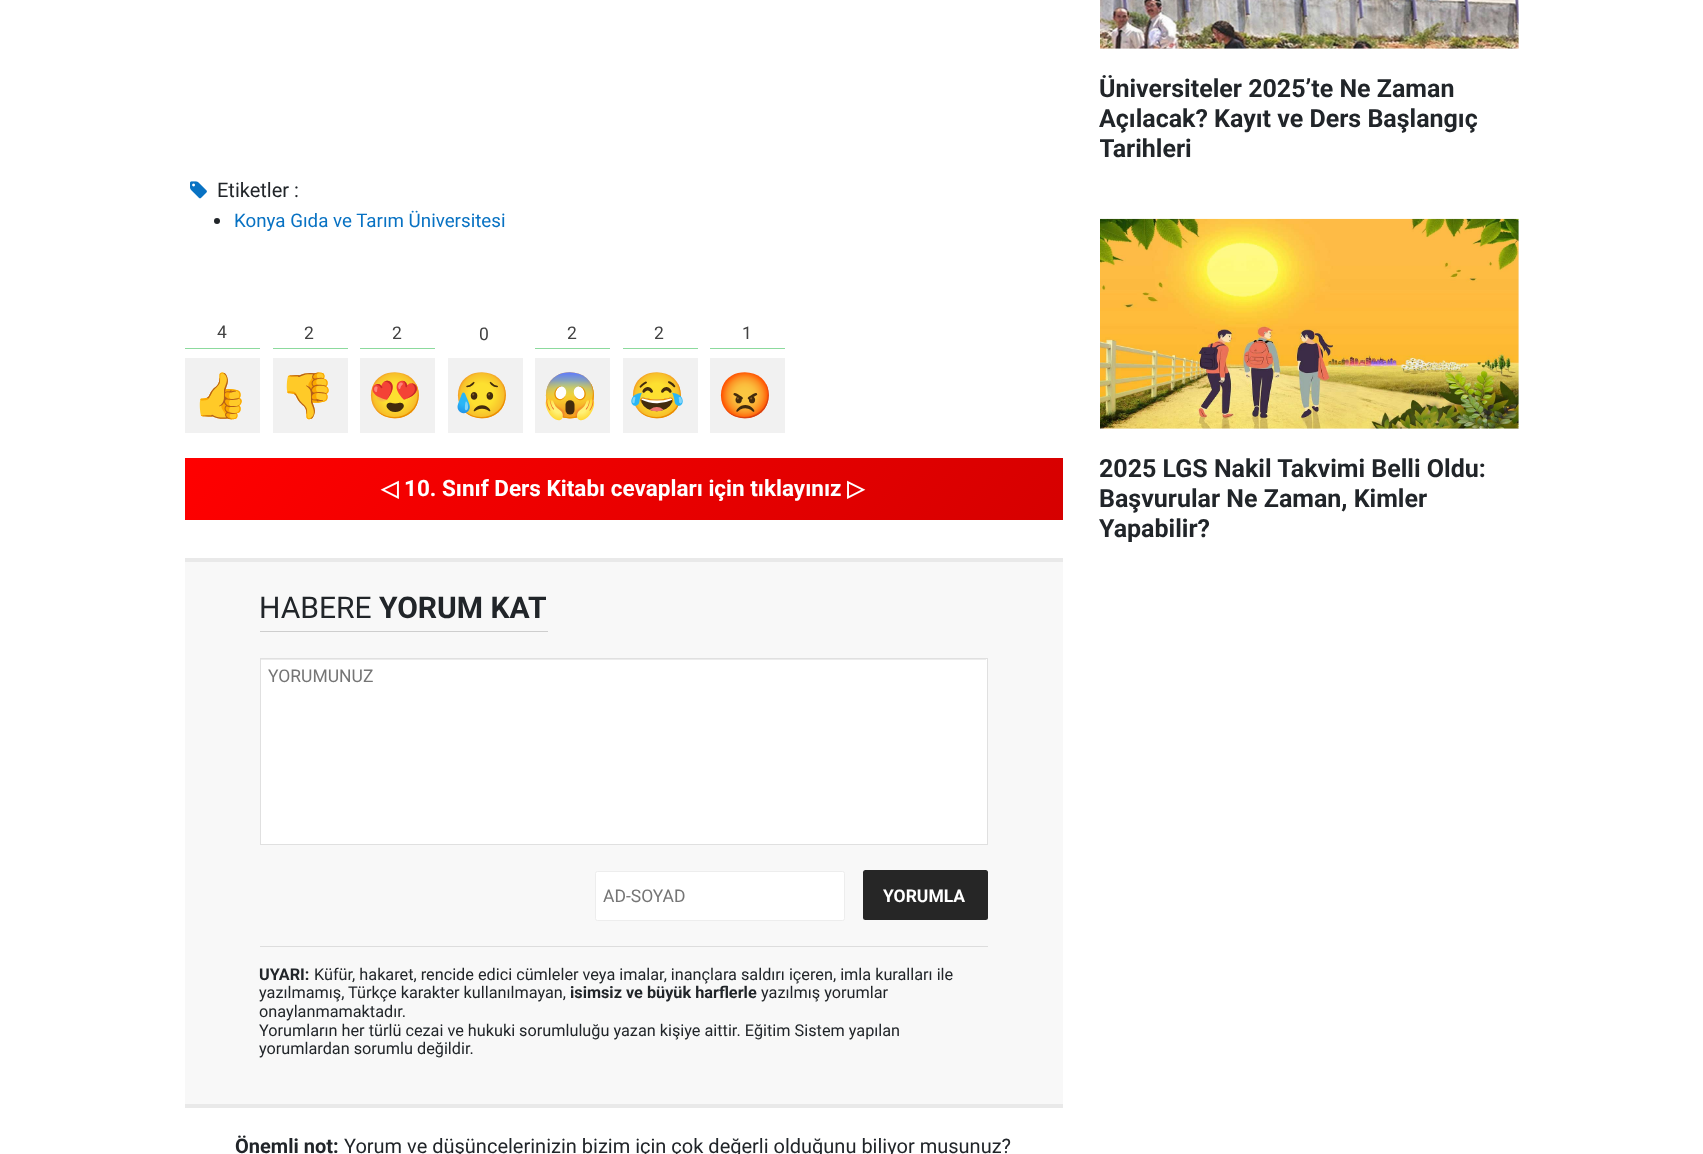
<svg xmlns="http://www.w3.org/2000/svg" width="1703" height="1154">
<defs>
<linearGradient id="g1" gradientUnits="userSpaceOnUse" x1="517" y1="62" x2="1608" y2="978"><stop offset="0" stop-color="#f00"/><stop offset="0.5" stop-color="#d60000"/><stop offset="1" stop-color="#5f6469"/></linearGradient>
<clipPath id="clip1"><rect x="1100" y="74" width="419" height="90"/></clipPath>
</defs>
<rect width="100%" height="100%" fill="#fff"/>
<image x="190" y="181" width="17" height="18" href="media/1.png"/>
<text x="217" y="197" style="font-family:Roboto;font-size:20px;fill:#212529">Etiketler :</text>
<circle cx="217" cy="221" r="3" fill="#212529"/>
<text x="234" y="227" style="font-family:Roboto;font-size:18.75px;fill:#0872c3">Konya Gıda ve Tarım Üniversitesi</text>
<rect x="185" y="348" width="75" height="1" fill="#8cda9d"/>
<text x="217" y="338" style="font-family:Roboto;font-size:17.5px;fill:#424242">4</text>
<rect x="273" y="348" width="75" height="1" fill="#8cda9d"/>
<text x="304" y="339" style="font-family:Roboto;font-size:17.5px;fill:#424242">2</text>
<rect x="360" y="348" width="75" height="1" fill="#8cda9d"/>
<text x="392" y="339" style="font-family:Roboto;font-size:17.5px;fill:#424242">2</text>
<text x="479" y="340" style="font-family:Roboto;font-size:17.5px;fill:#424242">0</text>
<rect x="535" y="348" width="75" height="1" fill="#8cda9d"/>
<text x="567" y="339" style="font-family:Roboto;font-size:17.5px;fill:#424242">2</text>
<rect x="623" y="348" width="75" height="1" fill="#8cda9d"/>
<text x="654" y="339" style="font-family:Roboto;font-size:17.5px;fill:#424242">2</text>
<rect x="710" y="348" width="75" height="1" fill="#8cda9d"/>
<text x="742" y="339" style="font-family:Roboto;font-size:17.5px;fill:#424242">1</text>
<rect x="185" y="358" width="75" height="75" fill="#f1f1f1"/>
<text x="192" y="411" style="font-family:Noto Color Emoji;font-size:45px;fill:#212529">👍</text>
<rect x="273" y="358" width="75" height="75" fill="#f1f1f1"/>
<text x="279" y="411" style="font-family:Noto Color Emoji;font-size:45px;fill:#212529">👎</text>
<rect x="360" y="358" width="75" height="75" fill="#f1f1f1"/>
<text x="367" y="411" style="font-family:Noto Color Emoji;font-size:45px;fill:#212529">😍</text>
<rect x="448" y="358" width="75" height="75" fill="#f1f1f1"/>
<text x="454" y="411" style="font-family:Noto Color Emoji;font-size:45px;fill:#212529">😥</text>
<rect x="535" y="358" width="75" height="75" fill="#f1f1f1"/>
<text x="542" y="411" style="font-family:Noto Color Emoji;font-size:45px;fill:#212529">😱</text>
<rect x="623" y="358" width="75" height="75" fill="#f1f1f1"/>
<text x="629" y="411" style="font-family:Noto Color Emoji;font-size:45px;fill:#212529">😂</text>
<rect x="710" y="358" width="75" height="75" fill="#f1f1f1"/>
<text x="717" y="411" style="font-family:Noto Color Emoji;font-size:45px;fill:#212529">😡</text>
<rect x="185" y="458" width="878" height="62" fill="url(#g1)"/>
<text x="381" y="496" style="font-family:DejaVu Sans;font-size:22.5px;font-weight:bold;fill:#fff">◁</text>
<text x="404" y="496" style="font-family:Roboto;font-size:22.5px;font-weight:bold;fill:#fff">10. Sınıf Ders Kitabı cevapları için tıklayınız</text>
<text x="847" y="496" style="font-family:DejaVu Sans;font-size:22.5px;font-weight:bold;fill:#fff">▷</text>
<rect x="185" y="562" width="878" height="542" fill="#f8f8f8"/>
<rect x="185" y="558" width="878" height="4" fill="#e9e9e9"/>
<rect x="185" y="1104" width="878" height="4" fill="#e9e9e9"/>
<rect x="260" y="631" width="288" height="1" fill="#cecece"/>
<text x="259" y="618" style="font-family:Roboto;font-size:30px;fill:#212529">HABERE</text>
<text x="379" y="618" style="font-family:Roboto;font-size:30px;font-weight:bold;fill:#212529">YORUM KAT</text>
<rect x="261" y="659" width="726" height="185" fill="#fff"/>
<rect x="261" y="659" width="725" height="1" fill="#ececec"/>
<rect x="260.5" y="658.5" width="727" height="186" fill="none" stroke="#e0e0e0"/>
<text x="268" y="682" style="font-family:Roboto;font-size:17.5px;fill:#757575">YORUMUNUZ</text>
<rect x="595.5" y="871.5" width="249" height="49" rx="2" fill="#fff" stroke="#ededed"/>
<text x="603" y="902" style="font-family:Roboto;font-size:17.5px;fill:#757575">AD-SOYAD</text>
<rect x="863" y="870" width="125" height="50" rx="2.5" fill="#262626"/>
<text x="883" y="902" style="font-family:Roboto;font-size:17.5px;font-weight:bold;fill:#fff">YORUMLA</text>
<rect x="260" y="946" width="728" height="1" fill="#ddd"/>
<text x="259" y="980" style="font-family:Roboto;font-size:16.25px;font-weight:bold;fill:#212529">UYARI:</text>
<text x="314" y="980" style="font-family:Roboto;font-size:16.25px;fill:#212529">Küfür, hakaret, rencide edici cümleler veya imalar, inançlara saldırı içeren, imla kuralları ile</text>
<text x="259" y="998" style="font-family:Roboto;font-size:16.25px;fill:#212529">yazılmamış, Türkçe karakter kullanılmayan,</text>
<text x="570" y="998" style="font-family:Roboto;font-size:16.25px;font-weight:bold;fill:#212529">isimsiz ve büyük harflerle</text>
<text x="761" y="998" style="font-family:Roboto;font-size:16.25px;fill:#212529">yazılmış yorumlar</text>
<text x="259" y="1017" style="font-family:Roboto;font-size:16.25px;fill:#212529">onaylanmamaktadır.</text>
<text x="259" y="1036" style="font-family:Roboto;font-size:16.25px;fill:#212529">Yorumların her türlü cezai ve hukuki sorumluluğu yazan kişiye aittir. Eğitim Sistem yapılan</text>
<text x="259" y="1054" style="font-family:Roboto;font-size:16.25px;fill:#212529">yorumlardan sorumlu değildir.</text>
<text x="235" y="1153" style="font-family:Roboto;font-size:20px;font-weight:bold;fill:#212529">Önemli not:</text>
<text x="344" y="1153" style="font-family:Roboto;font-size:20px;fill:#212529">Yorum ve düşüncelerinizin bizim için çok değerli olduğunu biliyor musunuz?</text>
<rect x="1100" width="419" height="49" fill="#f8f8f8"/>
<image x="1100" y="0" width="419" height="49" href="media/2.png"/>
<text x="1099" y="97" style="font-family:Roboto;font-size:25px;font-weight:bold;fill:#212529">Üniversiteler 2025’te Ne Zaman</text>
<text x="1099" y="127" style="font-family:Roboto;font-size:25px;font-weight:bold;fill:#212529">Açılacak? Kayıt ve Ders Başlangıç</text>
<g clip-path="url(#clip1)">
<text x="1099" y="157" style="font-family:Roboto;font-size:25px;font-weight:bold;fill:#212529">Tarihleri</text>
</g>
<rect x="1100" y="219" width="419" height="210" fill="#f8f8f8"/>
<image x="1100" y="218" width="419" height="211" href="media/3.png"/>
<text x="1099" y="477" style="font-family:Roboto;font-size:25px;font-weight:bold;fill:#212529">2025 LGS Nakil Takvimi Belli Oldu:</text>
<text x="1099" y="507" style="font-family:Roboto;font-size:25px;font-weight:bold;fill:#212529">Başvurular Ne Zaman, Kimler</text>
<text x="1099" y="537" style="font-family:Roboto;font-size:25px;font-weight:bold;fill:#212529">Yapabilir?</text>
</svg>
